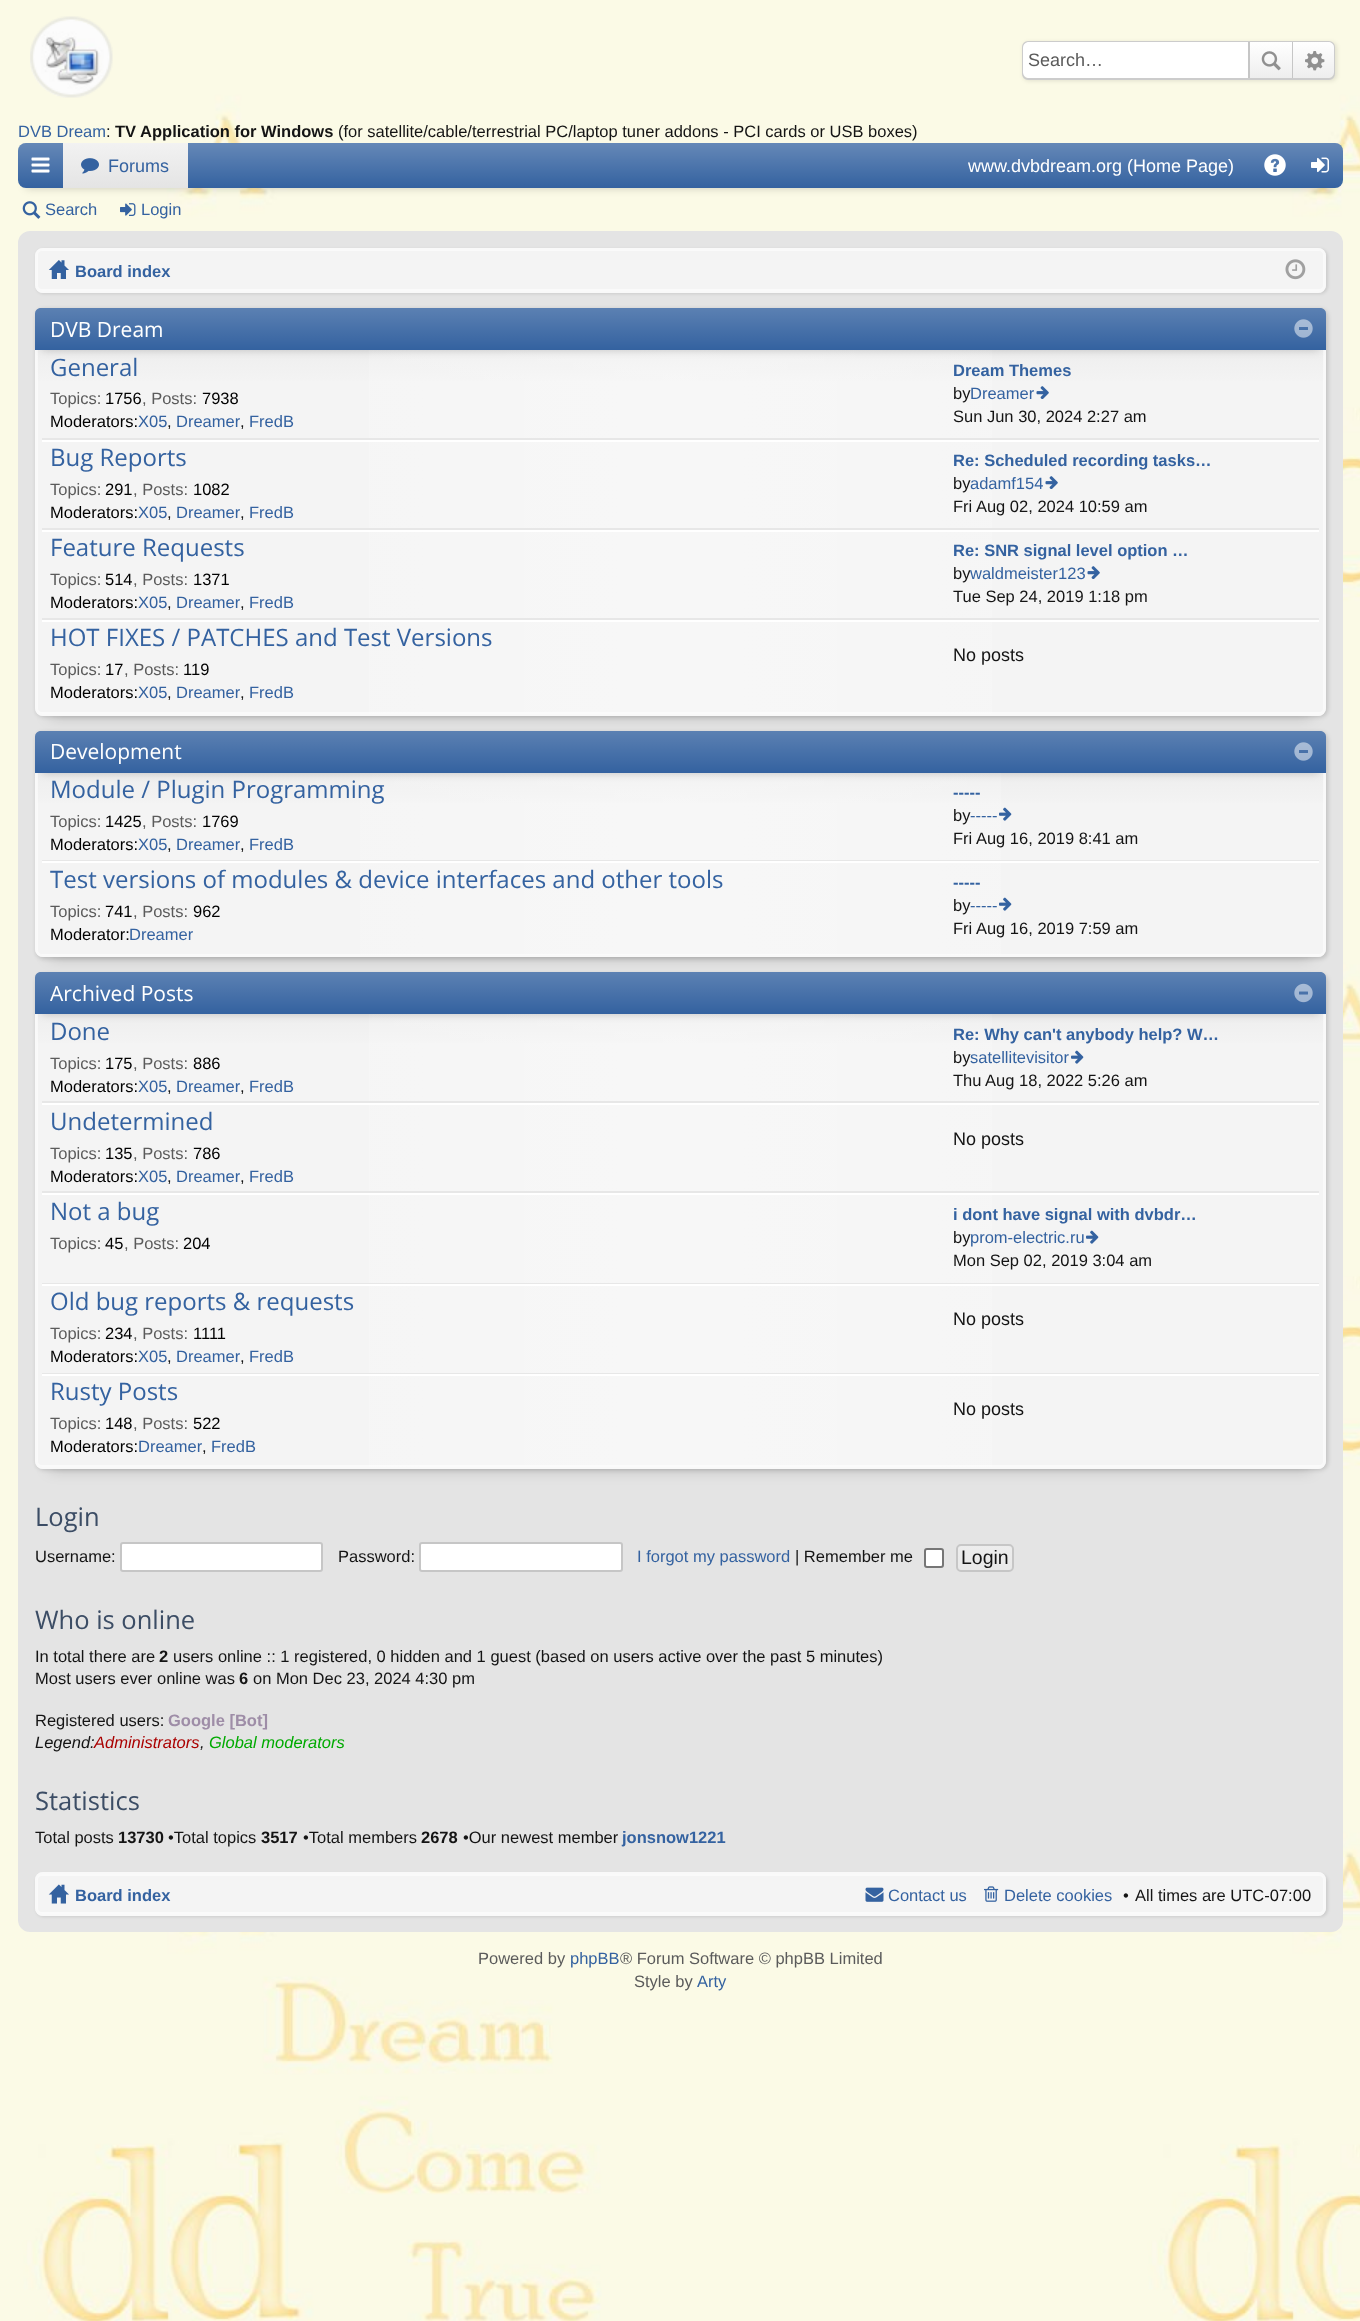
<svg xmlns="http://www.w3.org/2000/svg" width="1360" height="2321">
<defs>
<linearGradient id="g1" gradientUnits="userSpaceOnUse" x1="1271" y1="42" x2="1271" y2="78"><stop offset="0" stop-color="#fff"/><stop offset="1" stop-color="#eee"/></linearGradient>
<linearGradient id="g2" gradientUnits="userSpaceOnUse" x1="1313" y1="42" x2="1313" y2="78"><stop offset="0" stop-color="#fff"/><stop offset="1" stop-color="#fff" stop-opacity="0"/></linearGradient>
<linearGradient id="g3" gradientUnits="userSpaceOnUse" x1="680" y1="142" x2="680" y2="188"><stop offset="0" stop-color="#fff" stop-opacity="0.25"/><stop offset="1" stop-color="#fff" stop-opacity="0"/></linearGradient>
<linearGradient id="g4" gradientUnits="userSpaceOnUse" x1="125" y1="143" x2="125" y2="188"><stop offset="0" stop-color="#f2f2f2"/><stop offset="1" stop-color="#e4e4e4"/></linearGradient>
<clipPath id="clip1"><rect x="35" y="308" width="1291" height="408" rx="8"/></clipPath>
<linearGradient id="g5" gradientUnits="userSpaceOnUse" x1="680" y1="309" x2="680" y2="714"><stop offset="0" stop-color="#ccc" stop-opacity="0.2"/><stop offset="0.04" stop-color="#ccc" stop-opacity="0.25"/><stop offset="0.19" stop-color="#ccc" stop-opacity="0"/></linearGradient>
<linearGradient id="g6" gradientUnits="userSpaceOnUse" x1="36" y1="512" x2="1325" y2="512"><stop offset="0" stop-color="#fff" stop-opacity="0"/><stop offset="0.5" stop-color="#fff" stop-opacity="0.3"/><stop offset="1" stop-color="#fff" stop-opacity="0"/></linearGradient>
<linearGradient id="g7" gradientUnits="userSpaceOnUse" x1="680" y1="307" x2="680" y2="350"><stop offset="0" stop-color="#fff" stop-opacity="0.2"/><stop offset="1" stop-color="#fff" stop-opacity="0"/></linearGradient>
<clipPath id="clip2"><rect x="35" y="731" width="1291" height="226" rx="8"/></clipPath>
<linearGradient id="g8" gradientUnits="userSpaceOnUse" x1="680" y1="732" x2="680" y2="956"><stop offset="0" stop-color="#ccc" stop-opacity="0.2"/><stop offset="0.07" stop-color="#ccc" stop-opacity="0.25"/><stop offset="0.34" stop-color="#ccc" stop-opacity="0"/></linearGradient>
<linearGradient id="g9" gradientUnits="userSpaceOnUse" x1="36" y1="844" x2="1325" y2="844"><stop offset="0" stop-color="#fff" stop-opacity="0"/><stop offset="0.5" stop-color="#fff" stop-opacity="0.3"/><stop offset="1" stop-color="#fff" stop-opacity="0"/></linearGradient>
<linearGradient id="g10" gradientUnits="userSpaceOnUse" x1="680" y1="730" x2="680" y2="773"><stop offset="0" stop-color="#fff" stop-opacity="0.2"/><stop offset="1" stop-color="#fff" stop-opacity="0"/></linearGradient>
<clipPath id="clip3"><rect x="35" y="972" width="1291" height="497" rx="8"/></clipPath>
<linearGradient id="g11" gradientUnits="userSpaceOnUse" x1="680" y1="974" x2="680" y2="1467"><stop offset="0" stop-color="#ccc" stop-opacity="0.2"/><stop offset="0.03" stop-color="#ccc" stop-opacity="0.25"/><stop offset="0.15" stop-color="#ccc" stop-opacity="0"/></linearGradient>
<linearGradient id="g12" gradientUnits="userSpaceOnUse" x1="36" y1="1220" x2="1325" y2="1220"><stop offset="0" stop-color="#fff" stop-opacity="0"/><stop offset="0.5" stop-color="#fff" stop-opacity="0.3"/><stop offset="1" stop-color="#fff" stop-opacity="0"/></linearGradient>
<linearGradient id="g13" gradientUnits="userSpaceOnUse" x1="680" y1="972" x2="680" y2="1014"><stop offset="0" stop-color="#fff" stop-opacity="0.2"/><stop offset="1" stop-color="#fff" stop-opacity="0"/></linearGradient>
<clipPath id="clip4"><rect x="956" y="1544" width="58" height="28" rx="5"/></clipPath>
<linearGradient id="g14" gradientUnits="userSpaceOnUse" x1="985" y1="1545" x2="985" y2="1571"><stop offset="0" stop-color="#ededed"/><stop offset="1" stop-color="#e8e8e8"/></linearGradient>
</defs>
<rect width="100%" height="100%" fill="#fff"/>
<image x="0" y="0" width="1360" height="2321" href="media/1.png"/>
<image x="30" y="16" width="83" height="82" href="media/2.png"/>
<rect x="1023" y="42" width="314" height="39" rx="6" fill="#0000001a" filter="blur(2px)"/>
<rect x="1023" y="42" width="311" height="37" rx="5" fill="none" stroke="#ccc" stroke-width="2"/>
<path d="M1029 42h219v36h-219c-3.5 0-6-2.5-6-6v-24c0-3.5 2.5-6 6-6z" fill="#fff"/>
<text x="1028" y="66" style="font-family:Liberation Sans;font-size:18px;fill:#5b5b5b">Search…</text>
<rect x="1250" y="42" width="42" height="36" fill="url(#g1)"/>
<rect x="1292" y="42" width="1" height="36" fill="#c6c6c6"/>
<rect x="1248" y="42" width="2" height="36" fill="#c6c6c6"/>
<image x="1261" y="51" width="20" height="20" href="media/3.png"/>
<path d="M1293 42h35c3.5 0 6 2.5 6 6v24c0 3.5-2.5 6-6 6h-35z" fill="#eee"/>
<path d="M1293 42h35c3.5 0 6 2.5 6 6v24c0 3.5-2.5 6-6 6h-35z" fill="url(#g2)"/>
<image x="1305" y="51" width="20" height="20" href="media/4.png"/>
<text x="18" y="137" style="font-family:Liberation Sans;font-size:16.5px;fill:#3462a0">DVB Dream</text>
<text x="106" y="137" style="font-family:Liberation Sans;font-size:16.5px;fill:#141414">:</text>
<text x="115" y="137" style="font-family:Liberation Sans;font-size:16.5px;font-weight:bold;fill:#141414">TV Application for Windows</text>
<text x="338" y="137" style="font-family:Liberation Sans;font-size:16.5px;fill:#141414">(for satellite/cable/terrestrial PC/laptop tuner addons - PCI cards or USB boxes)</text>
<rect x="26" y="158" width="1309" height="30" fill="#00000033" filter="blur(4px)"/>
<rect x="18" y="143" width="1325" height="45" rx="8" fill="#3462a0"/>
<rect x="18" y="143" width="1325" height="45" rx="8" fill="url(#g3)"/>
<image x="31" y="157" width="19" height="16" href="media/5.png"/>
<rect x="63" y="143" width="125" height="45" fill="url(#g4)"/>
<image x="81" y="158" width="18" height="16" href="media/6.png"/>
<text x="108" y="172" style="font-family:Liberation Sans;font-size:18px;fill:#3462a0">Forums</text>
<text x="968" y="172" style="font-family:Liberation Sans;font-size:18px;fill:#fff">www.dvbdream.org (Home Page)</text>
<image x="1264" y="154" width="22" height="22" href="media/7.png"/>
<image x="1311" y="157" width="18" height="16" href="media/8.png"/>
<image x="22" y="201" width="19" height="18" href="media/9.png"/>
<text x="45" y="215" style="font-family:Liberation Sans;font-size:16.5px;fill:#3462a0">Search</text>
<image x="120" y="203" width="16" height="13" href="media/10.png"/>
<text x="141" y="215" style="font-family:Liberation Sans;font-size:16.5px;fill:#3462a0">Login</text>
<rect x="19" y="232" width="1323" height="1699" rx="11" fill="#e4e4e4" stroke="#e4e4e4" stroke-width="2"/>
<rect x="36" y="249" width="1292" height="45" rx="8" fill="#0000001a" filter="blur(1.5px)"/>
<rect x="35" y="248" width="1291" height="45" rx="8" fill="#f4f4f4"/>
<rect x="37" y="250" width="1287" height="40" rx="5" fill="none" stroke="#fafafa" stroke-width="2"/>
<rect x="36" y="249" width="1289" height="43" rx="7" fill="none" stroke="#f9f9f9" stroke-width="2"/>
<image x="48" y="260" width="21" height="19" href="media/11.png"/>
<text x="75" y="277" style="font-family:Liberation Sans;font-size:16.5px;font-weight:bold;fill:#3462a0">Board index</text>
<image x="1285" y="259" width="21" height="21" href="media/12.png"/>
<rect x="50" y="338" width="1261" height="378" fill="#00000033" filter="blur(7.5px)"/>
<rect x="36" y="309" width="1292" height="408" rx="8" fill="#00000026" filter="blur(2px)"/>
<rect x="35" y="308" width="1291" height="408" rx="8" fill="#f4f4f4"/>
<g clip-path="url(#clip1)">
<rect x="35" y="312" width="1291" height="69" fill="url(#g5)"/>
</g>
<rect x="369" y="350" width="623" height="364" fill="url(#g6)"/>
<rect x="37" y="310" width="1287" height="403" rx="5" fill="none" stroke="#ffffff80" stroke-width="2"/>
<rect x="36" y="309" width="1289" height="406" rx="7" fill="none" stroke="#f9f9f9" stroke-width="2"/>
<rect x="42" y="323" width="1277" height="27" fill="#00000033" filter="blur(4px)"/>
<path d="M41 308h1279c3.5 0 6 2.5 6 6v36h-1291v-36c0-3.5 2.5-6 6-6z" fill="#3462a0"/>
<path d="M41 308h1279c3.5 0 6 2.5 6 6v36h-1291v-36c0-3.5 2.5-6 6-6z" fill="url(#g7)"/>
<text x="50" y="337" style="font-family:Open Sans;font-size:21px;fill:#fff">DVB Dream</text>
<image x="1294" y="319" width="19" height="19" href="media/13.png"/>
<rect x="42" y="438" width="1277" height="2" fill="#e7e7e7"/>
<text x="50" y="376" style="font-family:Open Sans;font-size:24px;fill:#3462a0">General</text>
<text x="50" y="404" style="font-family:Liberation Sans;font-size:16.5px;fill:#5b5b5b">Topics:</text>
<text x="105" y="404" style="font-family:Liberation Sans;font-size:16.5px;fill:#000">1756</text>
<text x="142" y="404" style="font-family:Liberation Sans;font-size:16.5px;fill:#5b5b5b">, Posts:</text>
<text x="202" y="404" style="font-family:Liberation Sans;font-size:16.5px;fill:#000">7938</text>
<text x="50" y="427" style="font-family:Liberation Sans;font-size:16.5px;fill:#000">Moderators:</text>
<text x="138" y="427" style="font-family:Liberation Sans;font-size:16.5px;fill:#3462a0">X05</text>
<text x="167" y="427" style="font-family:Liberation Sans;font-size:16.5px;fill:#141414">,</text>
<text x="176" y="427" style="font-family:Liberation Sans;font-size:16.5px;fill:#3462a0">Dreamer</text>
<text x="240" y="427" style="font-family:Liberation Sans;font-size:16.5px;fill:#141414">,</text>
<text x="249" y="427" style="font-family:Liberation Sans;font-size:16.5px;fill:#3462a0">FredB</text>
<text x="953" y="376" style="font-family:Liberation Sans;font-size:16.5px;font-weight:bold;fill:#3462a0">Dream Themes</text>
<text x="953" y="399" style="font-family:Liberation Sans;font-size:16.5px;fill:#141414">by</text>
<text x="970" y="399" style="font-family:Liberation Sans;font-size:16.5px;fill:#3462a0">Dreamer</text>
<image x="1036" y="386" width="13" height="13" href="media/14.png"/>
<text x="953" y="422" style="font-family:Liberation Sans;font-size:16.5px;fill:#141414">Sun Jun 30, 2024 2:27 am</text>
<rect x="42" y="440" width="1277" height="2" fill="#fff"/>
<rect x="42" y="528" width="1277" height="2" fill="#e7e7e7"/>
<text x="50" y="466" style="font-family:Open Sans;font-size:24px;fill:#3462a0">Bug Reports</text>
<text x="50" y="495" style="font-family:Liberation Sans;font-size:16.5px;fill:#5b5b5b">Topics:</text>
<text x="105" y="495" style="font-family:Liberation Sans;font-size:16.5px;fill:#000">291</text>
<text x="133" y="495" style="font-family:Liberation Sans;font-size:16.5px;fill:#5b5b5b">, Posts:</text>
<text x="193" y="495" style="font-family:Liberation Sans;font-size:16.5px;fill:#000">1082</text>
<text x="50" y="518" style="font-family:Liberation Sans;font-size:16.5px;fill:#000">Moderators:</text>
<text x="138" y="518" style="font-family:Liberation Sans;font-size:16.5px;fill:#3462a0">X05</text>
<text x="167" y="518" style="font-family:Liberation Sans;font-size:16.5px;fill:#141414">,</text>
<text x="176" y="518" style="font-family:Liberation Sans;font-size:16.5px;fill:#3462a0">Dreamer</text>
<text x="240" y="518" style="font-family:Liberation Sans;font-size:16.5px;fill:#141414">,</text>
<text x="249" y="518" style="font-family:Liberation Sans;font-size:16.5px;fill:#3462a0">FredB</text>
<text x="953" y="466" style="font-family:Liberation Sans;font-size:16.5px;font-weight:bold;fill:#3462a0">Re: Scheduled recording tasks…</text>
<text x="953" y="489" style="font-family:Liberation Sans;font-size:16.5px;fill:#141414">by</text>
<text x="970" y="489" style="font-family:Liberation Sans;font-size:16.5px;fill:#3462a0">adamf154</text>
<image x="1045" y="476" width="13" height="13" href="media/15.png"/>
<text x="953" y="512" style="font-family:Liberation Sans;font-size:16.5px;fill:#141414">Fri Aug 02, 2024 10:59 am</text>
<rect x="42" y="530" width="1277" height="2" fill="#fff"/>
<rect x="42" y="618" width="1277" height="2" fill="#e7e7e7"/>
<text x="50" y="556" style="font-family:Open Sans;font-size:24px;fill:#3462a0">Feature Requests</text>
<text x="50" y="585" style="font-family:Liberation Sans;font-size:16.5px;fill:#5b5b5b">Topics:</text>
<text x="105" y="585" style="font-family:Liberation Sans;font-size:16.5px;fill:#000">514</text>
<text x="133" y="585" style="font-family:Liberation Sans;font-size:16.5px;fill:#5b5b5b">, Posts:</text>
<text x="193" y="585" style="font-family:Liberation Sans;font-size:16.5px;fill:#000">1371</text>
<text x="50" y="608" style="font-family:Liberation Sans;font-size:16.5px;fill:#000">Moderators:</text>
<text x="138" y="608" style="font-family:Liberation Sans;font-size:16.5px;fill:#3462a0">X05</text>
<text x="167" y="608" style="font-family:Liberation Sans;font-size:16.5px;fill:#141414">,</text>
<text x="176" y="608" style="font-family:Liberation Sans;font-size:16.5px;fill:#3462a0">Dreamer</text>
<text x="240" y="608" style="font-family:Liberation Sans;font-size:16.5px;fill:#141414">,</text>
<text x="249" y="608" style="font-family:Liberation Sans;font-size:16.5px;fill:#3462a0">FredB</text>
<text x="953" y="556" style="font-family:Liberation Sans;font-size:16.5px;font-weight:bold;fill:#3462a0">Re: SNR signal level option …</text>
<text x="953" y="579" style="font-family:Liberation Sans;font-size:16.5px;fill:#141414">by</text>
<text x="970" y="579" style="font-family:Liberation Sans;font-size:16.5px;fill:#3462a0">waldmeister123</text>
<image x="1087" y="566" width="13" height="13" href="media/16.png"/>
<text x="953" y="602" style="font-family:Liberation Sans;font-size:16.5px;fill:#141414">Tue Sep 24, 2019 1:18 pm</text>
<rect x="42" y="620" width="1277" height="2" fill="#fff"/>
<text x="50" y="646" style="font-family:Open Sans;font-size:24px;fill:#3462a0">HOT FIXES / PATCHES and Test Versions</text>
<text x="50" y="675" style="font-family:Liberation Sans;font-size:16.5px;fill:#5b5b5b">Topics:</text>
<text x="105" y="675" style="font-family:Liberation Sans;font-size:16.5px;fill:#000">17</text>
<text x="124" y="675" style="font-family:Liberation Sans;font-size:16.5px;fill:#5b5b5b">, Posts:</text>
<text x="183" y="675" style="font-family:Liberation Sans;font-size:16.5px;fill:#000">119</text>
<text x="50" y="698" style="font-family:Liberation Sans;font-size:16.5px;fill:#000">Moderators:</text>
<text x="138" y="698" style="font-family:Liberation Sans;font-size:16.5px;fill:#3462a0">X05</text>
<text x="167" y="698" style="font-family:Liberation Sans;font-size:16.5px;fill:#141414">,</text>
<text x="176" y="698" style="font-family:Liberation Sans;font-size:16.5px;fill:#3462a0">Dreamer</text>
<text x="240" y="698" style="font-family:Liberation Sans;font-size:16.5px;fill:#141414">,</text>
<text x="249" y="698" style="font-family:Liberation Sans;font-size:16.5px;fill:#3462a0">FredB</text>
<text x="953" y="661" style="font-family:Liberation Sans;font-size:18px;fill:#141414">No posts</text>
<rect x="50" y="761" width="1261" height="196" fill="#00000033" filter="blur(7.5px)"/>
<rect x="36" y="732" width="1292" height="227" rx="8" fill="#00000026" filter="blur(2px)"/>
<rect x="35" y="731" width="1291" height="226" rx="8" fill="#f4f4f4"/>
<g clip-path="url(#clip2)">
<rect x="35" y="735" width="1291" height="68" fill="url(#g8)"/>
</g>
<rect x="360" y="773" width="641" height="182" fill="url(#g9)"/>
<rect x="37" y="733" width="1287" height="222" rx="5" fill="none" stroke="#ffffff80" stroke-width="2"/>
<rect x="36" y="732" width="1289" height="224" rx="7" fill="none" stroke="#f9f9f9" stroke-width="2"/>
<rect x="42" y="746" width="1277" height="27" fill="#00000033" filter="blur(4px)"/>
<path d="M41 731h1279c3.5 0 6 2.5 6 6v36h-1291v-36c0-3.5 2.5-6 6-6z" fill="#3462a0"/>
<path d="M41 731h1279c3.5 0 6 2.5 6 6v36h-1291v-36c0-3.5 2.5-6 6-6z" fill="url(#g10)"/>
<text x="50" y="759" style="font-family:Open Sans;font-size:21px;fill:#fff">Development</text>
<image x="1294" y="742" width="19" height="19" href="media/13.png"/>
<rect x="42" y="860" width="1277" height="1" fill="#e7e7e7"/>
<text x="50" y="798" style="font-family:Open Sans;font-size:24px;fill:#3462a0">Module / Plugin Programming</text>
<text x="50" y="827" style="font-family:Liberation Sans;font-size:16.5px;fill:#5b5b5b">Topics:</text>
<text x="105" y="827" style="font-family:Liberation Sans;font-size:16.5px;fill:#000">1425</text>
<text x="142" y="827" style="font-family:Liberation Sans;font-size:16.5px;fill:#5b5b5b">, Posts:</text>
<text x="202" y="827" style="font-family:Liberation Sans;font-size:16.5px;fill:#000">1769</text>
<text x="50" y="850" style="font-family:Liberation Sans;font-size:16.5px;fill:#000">Moderators:</text>
<text x="138" y="850" style="font-family:Liberation Sans;font-size:16.5px;fill:#3462a0">X05</text>
<text x="167" y="850" style="font-family:Liberation Sans;font-size:16.5px;fill:#141414">,</text>
<text x="176" y="850" style="font-family:Liberation Sans;font-size:16.5px;fill:#3462a0">Dreamer</text>
<text x="240" y="850" style="font-family:Liberation Sans;font-size:16.5px;fill:#141414">,</text>
<text x="249" y="850" style="font-family:Liberation Sans;font-size:16.5px;fill:#3462a0">FredB</text>
<text x="953" y="798" style="font-family:Liberation Sans;font-size:16.5px;font-weight:bold;fill:#3462a0">-----</text>
<text x="953" y="821" style="font-family:Liberation Sans;font-size:16.5px;fill:#141414">by</text>
<text x="970" y="821" style="font-family:Liberation Sans;font-size:16.5px;fill:#3462a0">-----</text>
<image x="999" y="807" width="13" height="14" href="media/17.png"/>
<text x="953" y="844" style="font-family:Liberation Sans;font-size:16.5px;fill:#141414">Fri Aug 16, 2019 8:41 am</text>
<rect x="42" y="861" width="1277" height="2" fill="#fff"/>
<text x="50" y="888" style="font-family:Open Sans;font-size:24px;fill:#3462a0">Test versions of modules &amp; device interfaces and other tools</text>
<text x="50" y="917" style="font-family:Liberation Sans;font-size:16.5px;fill:#5b5b5b">Topics:</text>
<text x="105" y="917" style="font-family:Liberation Sans;font-size:16.5px;fill:#000">741</text>
<text x="133" y="917" style="font-family:Liberation Sans;font-size:16.5px;fill:#5b5b5b">, Posts:</text>
<text x="193" y="917" style="font-family:Liberation Sans;font-size:16.5px;fill:#000">962</text>
<text x="50" y="940" style="font-family:Liberation Sans;font-size:16.5px;fill:#000">Moderator:</text>
<text x="129" y="940" style="font-family:Liberation Sans;font-size:16.5px;fill:#3462a0">Dreamer</text>
<text x="953" y="888" style="font-family:Liberation Sans;font-size:16.5px;font-weight:bold;fill:#3462a0">-----</text>
<text x="953" y="911" style="font-family:Liberation Sans;font-size:16.5px;fill:#141414">by</text>
<text x="970" y="911" style="font-family:Liberation Sans;font-size:16.5px;fill:#3462a0">-----</text>
<image x="999" y="897" width="13" height="14" href="media/17.png"/>
<text x="953" y="934" style="font-family:Liberation Sans;font-size:16.5px;fill:#141414">Fri Aug 16, 2019 7:59 am</text>
<rect x="50" y="1002" width="1261" height="467" fill="#00000033" filter="blur(7.5px)"/>
<rect x="36" y="974" width="1292" height="496" rx="8" fill="#00000026" filter="blur(2px)"/>
<rect x="35" y="972" width="1291" height="497" rx="8" fill="#f4f4f4"/>
<g clip-path="url(#clip3)">
<rect x="35" y="976" width="1291" height="67" fill="url(#g11)"/>
</g>
<rect x="369" y="1014" width="623" height="453" fill="url(#g12)"/>
<rect x="37" y="975" width="1287" height="491" rx="5" fill="none" stroke="#ffffff80" stroke-width="2"/>
<rect x="36" y="973" width="1289" height="495" rx="7" fill="none" stroke="#f9f9f9" stroke-width="2"/>
<rect x="42" y="987" width="1277" height="27" fill="#00000033" filter="blur(4px)"/>
<path d="M41 972h1279c3.5 0 6 2.5 6 6v36h-1291v-36c0-3.5 2.5-6 6-6z" fill="#3462a0"/>
<path d="M41 972h1279c3.5 0 6 2.5 6 6v36h-1291v-36c0-3.5 2.5-6 6-6z" fill="url(#g13)"/>
<text x="50" y="1001" style="font-family:Open Sans;font-size:21px;fill:#fff">Archived Posts</text>
<image x="1294" y="983" width="19" height="20" href="media/18.png"/>
<rect x="42" y="1101" width="1277" height="2" fill="#e7e7e7"/>
<text x="50" y="1040" style="font-family:Open Sans;font-size:24px;fill:#3462a0">Done</text>
<text x="50" y="1069" style="font-family:Liberation Sans;font-size:16.5px;fill:#5b5b5b">Topics:</text>
<text x="105" y="1069" style="font-family:Liberation Sans;font-size:16.5px;fill:#000">175</text>
<text x="133" y="1069" style="font-family:Liberation Sans;font-size:16.5px;fill:#5b5b5b">, Posts:</text>
<text x="193" y="1069" style="font-family:Liberation Sans;font-size:16.5px;fill:#000">886</text>
<text x="50" y="1092" style="font-family:Liberation Sans;font-size:16.5px;fill:#000">Moderators:</text>
<text x="138" y="1092" style="font-family:Liberation Sans;font-size:16.5px;fill:#3462a0">X05</text>
<text x="167" y="1092" style="font-family:Liberation Sans;font-size:16.5px;fill:#141414">,</text>
<text x="176" y="1092" style="font-family:Liberation Sans;font-size:16.5px;fill:#3462a0">Dreamer</text>
<text x="240" y="1092" style="font-family:Liberation Sans;font-size:16.5px;fill:#141414">,</text>
<text x="249" y="1092" style="font-family:Liberation Sans;font-size:16.5px;fill:#3462a0">FredB</text>
<text x="953" y="1040" style="font-family:Liberation Sans;font-size:16.5px;font-weight:bold;fill:#3462a0">Re: Why can't anybody help? W…</text>
<text x="953" y="1063" style="font-family:Liberation Sans;font-size:16.5px;fill:#141414">by</text>
<text x="970" y="1063" style="font-family:Liberation Sans;font-size:16.5px;fill:#3462a0">satellitevisitor</text>
<image x="1071" y="1050" width="13" height="14" href="media/19.png"/>
<text x="953" y="1086" style="font-family:Liberation Sans;font-size:16.5px;fill:#141414">Thu Aug 18, 2022 5:26 am</text>
<rect x="42" y="1103" width="1277" height="2" fill="#fff"/>
<rect x="42" y="1191" width="1277" height="2" fill="#e7e7e7"/>
<text x="50" y="1130" style="font-family:Open Sans;font-size:24px;fill:#3462a0">Undetermined</text>
<text x="50" y="1159" style="font-family:Liberation Sans;font-size:16.5px;fill:#5b5b5b">Topics:</text>
<text x="105" y="1159" style="font-family:Liberation Sans;font-size:16.5px;fill:#000">135</text>
<text x="133" y="1159" style="font-family:Liberation Sans;font-size:16.5px;fill:#5b5b5b">, Posts:</text>
<text x="193" y="1159" style="font-family:Liberation Sans;font-size:16.5px;fill:#000">786</text>
<text x="50" y="1182" style="font-family:Liberation Sans;font-size:16.5px;fill:#000">Moderators:</text>
<text x="138" y="1182" style="font-family:Liberation Sans;font-size:16.5px;fill:#3462a0">X05</text>
<text x="167" y="1182" style="font-family:Liberation Sans;font-size:16.5px;fill:#141414">,</text>
<text x="176" y="1182" style="font-family:Liberation Sans;font-size:16.5px;fill:#3462a0">Dreamer</text>
<text x="240" y="1182" style="font-family:Liberation Sans;font-size:16.5px;fill:#141414">,</text>
<text x="249" y="1182" style="font-family:Liberation Sans;font-size:16.5px;fill:#3462a0">FredB</text>
<text x="953" y="1145" style="font-family:Liberation Sans;font-size:18px;fill:#141414">No posts</text>
<rect x="42" y="1193" width="1277" height="2" fill="#fff"/>
<rect x="42" y="1283" width="1277" height="1" fill="#e7e7e7"/>
<text x="50" y="1220" style="font-family:Open Sans;font-size:24px;fill:#3462a0">Not a bug</text>
<text x="50" y="1249" style="font-family:Liberation Sans;font-size:16.5px;fill:#5b5b5b">Topics:</text>
<text x="105" y="1249" style="font-family:Liberation Sans;font-size:16.5px;fill:#000">45</text>
<text x="124" y="1249" style="font-family:Liberation Sans;font-size:16.5px;fill:#5b5b5b">, Posts:</text>
<text x="183" y="1249" style="font-family:Liberation Sans;font-size:16.5px;fill:#000">204</text>
<text x="953" y="1220" style="font-family:Liberation Sans;font-size:16.5px;font-weight:bold;fill:#3462a0">i dont have signal with dvbdr…</text>
<text x="953" y="1243" style="font-family:Liberation Sans;font-size:16.5px;fill:#141414">by</text>
<text x="970" y="1243" style="font-family:Liberation Sans;font-size:16.5px;fill:#3462a0">prom-electric.ru</text>
<image x="1086" y="1230" width="13" height="14" href="media/20.png"/>
<text x="953" y="1266" style="font-family:Liberation Sans;font-size:16.5px;fill:#141414">Mon Sep 02, 2019 3:04 am</text>
<rect x="42" y="1284" width="1277" height="2" fill="#fff"/>
<rect x="42" y="1373" width="1277" height="1" fill="#e7e7e7"/>
<text x="50" y="1310" style="font-family:Open Sans;font-size:24px;fill:#3462a0">Old bug reports &amp; requests</text>
<text x="50" y="1339" style="font-family:Liberation Sans;font-size:16.5px;fill:#5b5b5b">Topics:</text>
<text x="105" y="1339" style="font-family:Liberation Sans;font-size:16.5px;fill:#000">234</text>
<text x="133" y="1339" style="font-family:Liberation Sans;font-size:16.5px;fill:#5b5b5b">, Posts:</text>
<text x="193" y="1339" style="font-family:Liberation Sans;font-size:16.5px;fill:#000">1111</text>
<text x="50" y="1362" style="font-family:Liberation Sans;font-size:16.5px;fill:#000">Moderators:</text>
<text x="138" y="1362" style="font-family:Liberation Sans;font-size:16.5px;fill:#3462a0">X05</text>
<text x="167" y="1362" style="font-family:Liberation Sans;font-size:16.5px;fill:#141414">,</text>
<text x="176" y="1362" style="font-family:Liberation Sans;font-size:16.5px;fill:#3462a0">Dreamer</text>
<text x="240" y="1362" style="font-family:Liberation Sans;font-size:16.5px;fill:#141414">,</text>
<text x="249" y="1362" style="font-family:Liberation Sans;font-size:16.5px;fill:#3462a0">FredB</text>
<text x="953" y="1325" style="font-family:Liberation Sans;font-size:18px;fill:#141414">No posts</text>
<rect x="42" y="1374" width="1277" height="2" fill="#fff"/>
<text x="50" y="1400" style="font-family:Open Sans;font-size:24px;fill:#3462a0">Rusty Posts</text>
<text x="50" y="1429" style="font-family:Liberation Sans;font-size:16.5px;fill:#5b5b5b">Topics:</text>
<text x="105" y="1429" style="font-family:Liberation Sans;font-size:16.5px;fill:#000">148</text>
<text x="133" y="1429" style="font-family:Liberation Sans;font-size:16.5px;fill:#5b5b5b">, Posts:</text>
<text x="193" y="1429" style="font-family:Liberation Sans;font-size:16.5px;fill:#000">522</text>
<text x="50" y="1452" style="font-family:Liberation Sans;font-size:16.5px;fill:#000">Moderators:</text>
<text x="138" y="1452" style="font-family:Liberation Sans;font-size:16.5px;fill:#3462a0">Dreamer</text>
<text x="202" y="1452" style="font-family:Liberation Sans;font-size:16.5px;fill:#141414">,</text>
<text x="211" y="1452" style="font-family:Liberation Sans;font-size:16.5px;fill:#3462a0">FredB</text>
<text x="953" y="1415" style="font-family:Liberation Sans;font-size:18px;fill:#141414">No posts</text>
<text x="35" y="1526" style="font-family:Open Sans;font-size:25.5px;fill:#3c4d65">Login</text>
<text x="35" y="1562" style="font-family:Liberation Sans;font-size:16.5px;fill:#141414">Username:</text>
<rect x="121" y="1543" width="201" height="28" rx="2" fill="#fff" stroke="#c6c6c6" stroke-width="2"/>
<text x="338" y="1562" style="font-family:Liberation Sans;font-size:16.5px;fill:#141414">Password:</text>
<rect x="420" y="1543" width="202" height="28" rx="2" fill="#fff" stroke="#c6c6c6" stroke-width="2"/>
<text x="637" y="1562" style="font-family:Liberation Sans;font-size:16.5px;fill:#3462a0">I forgot my password</text>
<text x="795" y="1562" style="font-family:Liberation Sans;font-size:16.5px;fill:#141414">| Remember me</text>
<rect x="925" y="1549" width="18" height="18" rx="2" fill="#fff" stroke="#767676" stroke-width="2"/>
<g clip-path="url(#clip4)">
<rect x="956" y="1545" width="58" height="26" fill="url(#g14)"/>
</g>
<rect x="957" y="1545" width="56" height="26" rx="4" fill="none" stroke="#c6c6c6" stroke-width="2"/>
<text x="961" y="1564" style="font-family:Liberation Sans;font-size:19.5px;fill:#141414">Login</text>
<text x="35" y="1629" style="font-family:Open Sans;font-size:25.5px;fill:#3c4d65">Who is online</text>
<text x="35" y="1662" style="font-family:Liberation Sans;font-size:16.5px;fill:#141414">In total there are</text>
<text x="159" y="1662" style="font-family:Liberation Sans;font-size:16.5px;font-weight:bold;fill:#141414">2</text>
<text x="173" y="1662" style="font-family:Liberation Sans;font-size:16.5px;fill:#141414">users online :: 1 registered, 0 hidden and 1 guest (based on users active over the past 5 minutes)</text>
<text x="35" y="1684" style="font-family:Liberation Sans;font-size:16.5px;fill:#141414">Most users ever online was</text>
<text x="239" y="1684" style="font-family:Liberation Sans;font-size:16.5px;font-weight:bold;fill:#141414">6</text>
<text x="253" y="1684" style="font-family:Liberation Sans;font-size:16.5px;fill:#141414">on Mon Dec 23, 2024 4:30 pm</text>
<text x="35" y="1726" style="font-family:Liberation Sans;font-size:16.5px;fill:#141414">Registered users:</text>
<text x="168" y="1726" style="font-family:Liberation Sans;font-size:16.5px;font-weight:bold;fill:#9e8da7">Google [Bot]</text>
<text x="35" y="1748" style="font-family:Liberation Sans;font-size:16.5px;font-style:italic;fill:#141414">Legend:</text>
<text x="94" y="1748" style="font-family:Liberation Sans;font-size:16.5px;font-style:italic;fill:#a00">Administrators</text>
<text x="200" y="1748" style="font-family:Liberation Sans;font-size:16.5px;font-style:italic;fill:#141414">,</text>
<text x="209" y="1748" style="font-family:Liberation Sans;font-size:16.5px;font-style:italic;fill:#0a0">Global moderators</text>
<text x="35" y="1810" style="font-family:Open Sans;font-size:25.5px;fill:#3c4d65">Statistics</text>
<text x="35" y="1843" style="font-family:Liberation Sans;font-size:16.5px;fill:#141414">Total posts</text>
<text x="118" y="1843" style="font-family:Liberation Sans;font-size:16.5px;font-weight:bold;fill:#141414">13730</text>
<text x="168" y="1843" style="font-family:Liberation Sans;font-size:16.5px;fill:#141414">•Total topics</text>
<text x="261" y="1843" style="font-family:Liberation Sans;font-size:16.5px;font-weight:bold;fill:#141414">3517</text>
<text x="303" y="1843" style="font-family:Liberation Sans;font-size:16.5px;fill:#141414">•Total members</text>
<text x="421" y="1843" style="font-family:Liberation Sans;font-size:16.5px;font-weight:bold;fill:#141414">2678</text>
<text x="463" y="1843" style="font-family:Liberation Sans;font-size:16.5px;fill:#141414">•Our newest member</text>
<text x="622" y="1843" style="font-family:Liberation Sans;font-size:16.5px;font-weight:bold;fill:#3462a0">jonsnow1221</text>
<rect x="36" y="1874" width="1292" height="43" rx="8" fill="#0000001a" filter="blur(1.5px)"/>
<rect x="35" y="1872" width="1291" height="44" rx="8" fill="#f4f4f4"/>
<rect x="37" y="1875" width="1287" height="38" rx="5" fill="none" stroke="#fafafa" stroke-width="2"/>
<rect x="36" y="1873" width="1289" height="42" rx="7" fill="none" stroke="#f9f9f9" stroke-width="2"/>
<image x="48" y="1884" width="21" height="20" href="media/21.png"/>
<text x="75" y="1901" style="font-family:Liberation Sans;font-size:16.5px;font-weight:bold;fill:#3462a0">Board index</text>
<image x="865" y="1887" width="19" height="15" href="media/22.png"/>
<text x="888" y="1901" style="font-family:Liberation Sans;font-size:16.5px;fill:#3462a0">Contact us</text>
<image x="984" y="1886" width="15" height="16" href="media/23.png"/>
<text x="1004" y="1901" style="font-family:Liberation Sans;font-size:16.5px;fill:#3462a0">Delete cookies</text>
<text x="1123" y="1901" style="font-family:Liberation Sans;font-size:16.5px;fill:#141414">•</text>
<text x="1135" y="1901" style="font-family:Liberation Sans;font-size:16.5px;fill:#141414">All times are UTC-07:00</text>
<text x="478" y="1964" style="font-family:Liberation Sans;font-size:16.5px;fill:#5b5b5b">Powered by</text>
<text x="570" y="1964" style="font-family:Liberation Sans;font-size:16.5px;fill:#3462a0">phpBB</text>
<text x="620" y="1964" style="font-family:Liberation Sans;font-size:16.5px;fill:#5b5b5b">® Forum Software © phpBB Limited</text>
<text x="634" y="1987" style="font-family:Liberation Sans;font-size:16.5px;fill:#5b5b5b">Style by</text>
<text x="697" y="1987" style="font-family:Liberation Sans;font-size:16.5px;fill:#3462a0">Arty</text>
</svg>
